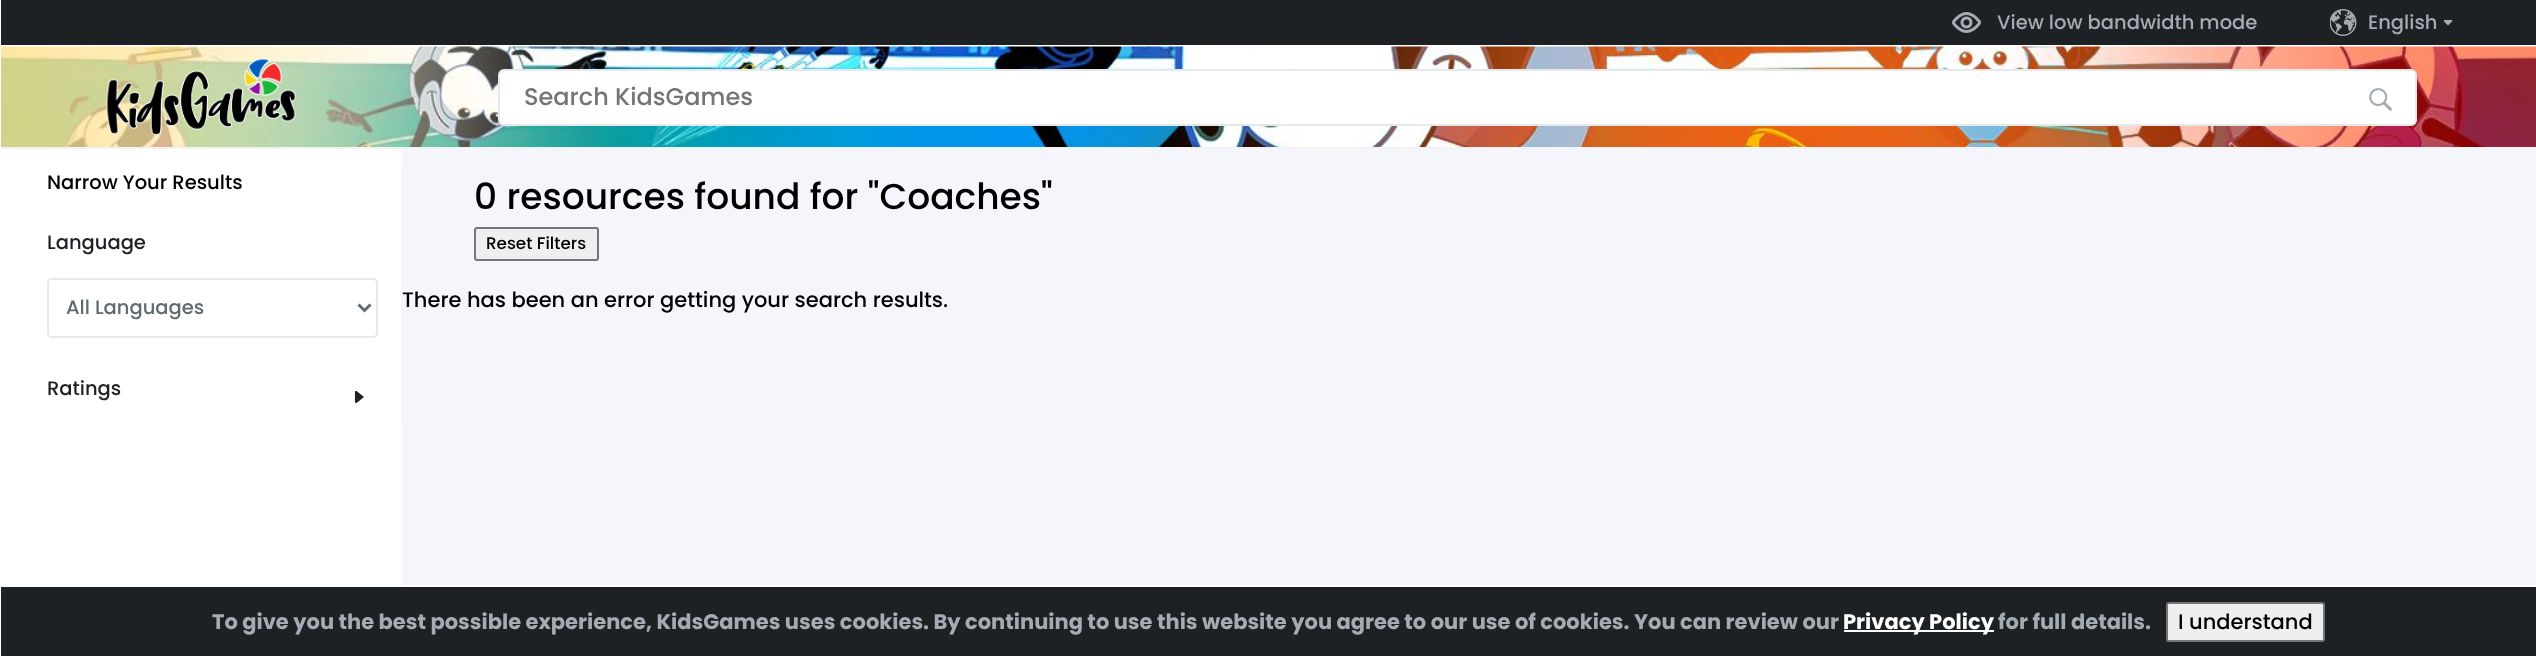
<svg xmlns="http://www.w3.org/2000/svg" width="2536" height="656">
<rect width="100%" height="100%" fill="#fff"/>
<rect y="147" width="2536" height="2" fill="#f3f3f3"/>
<rect y="147" width="1" height="2" fill="#fff"/>
<rect x="1" width="2535" height="45" fill="#1e2124"/>
<image x="1951" y="12" width="31" height="21" href="media/1.png"/>
<text x="1997" y="29" style="font-family:Poppins;font-size:19.5px;font-weight:500;fill:#a3acb4">View low bandwidth mode</text>
<image x="2330" y="9" width="27" height="27" href="media/2.png"/>
<text x="2368" y="29" style="font-family:Poppins;font-size:19.5px;font-weight:500;fill:#a3acb4">English</text>
<image x="2444" y="20" width="9" height="6" href="media/3.png"/>
<image x="1" y="46" width="2535" height="101" href="media/4.png"/>
<image x="106" y="58" width="190" height="77" href="media/5.png"/>
<rect x="499" y="70" width="1917" height="55" rx="5" fill="#fff" stroke="#e6e9ec" stroke-width="2"/>
<text x="524" y="105" style="font-family:Poppins;font-size:24px;font-weight:500;fill:#757575">Search KidsGames</text>
<image x="2369" y="88" width="23" height="23" href="media/6.png"/>
<rect x="401" y="173" width="1" height="250" fill="#f3f3f3"/>
<text x="47" y="189" style="font-family:Poppins;font-size:19.5px;font-weight:500;fill:#000">Narrow Your Results</text>
<text x="47" y="249" style="font-family:Poppins;font-size:19.5px;font-weight:500;fill:#1e2124">Language</text>
<rect x="48" y="279" width="329" height="58" rx="4" fill="none" stroke="#e6e9ec" stroke-width="2"/>
<path d="M358.5 304.5l6 6l6-6" fill="none" stroke="#606a71" stroke-width="3"/>
<text x="66" y="314" style="font-family:Poppins;font-size:19.5px;font-weight:500;fill:#606a71">All Languages</text>
<text x="47" y="395" style="font-family:Poppins;font-size:19.5px;font-weight:500;fill:#1e2124">Ratings</text>
<image x="354" y="391" width="10" height="12" href="media/7.png"/>
<rect x="402" y="149" width="2134" height="436" fill="#f4f6fb"/>
<text x="474" y="209" style="font-family:Poppins;font-size:36px;font-weight:500;fill:#000">0 resources found for "Coaches"</text>
<rect x="475" y="228" width="123" height="32" rx="2" fill="#efefef" stroke="#767676" stroke-width="2"/>
<text x="486" y="249" style="font-family:Poppins;font-size:16.75px;font-weight:500;fill:#000">Reset Filters</text>
<text x="402" y="307" style="font-family:Poppins;font-size:21px;font-weight:500;fill:#000">There has been an error getting your search results.</text>
<rect x="1" y="587" width="2535" height="69" fill="#1e2124"/>
<text x="212" y="629" style="font-family:Poppins;font-size:21px;font-weight:bold;fill:#a3acb4">To give you the best possible experience, KidsGames uses cookies. By continuing to use this website you agree to our use of cookies. You can review our</text>
<rect x="1844" y="630" width="150" height="2" fill="#fff"/>
<text x="1843" y="629" style="font-family:Poppins;font-size:21px;font-weight:bold;fill:#fff">Privacy Policy</text>
<text x="1998" y="629" style="font-family:Poppins;font-size:21px;font-weight:bold;fill:#a3acb4">for full details.</text>
<rect x="2167" y="603" width="157" height="38" rx="2" fill="#efefef" stroke="#767676" stroke-width="2"/>
<text x="2178" y="629" style="font-family:Poppins;font-size:21px;font-weight:500;fill:#000">I understand</text>
</svg>
